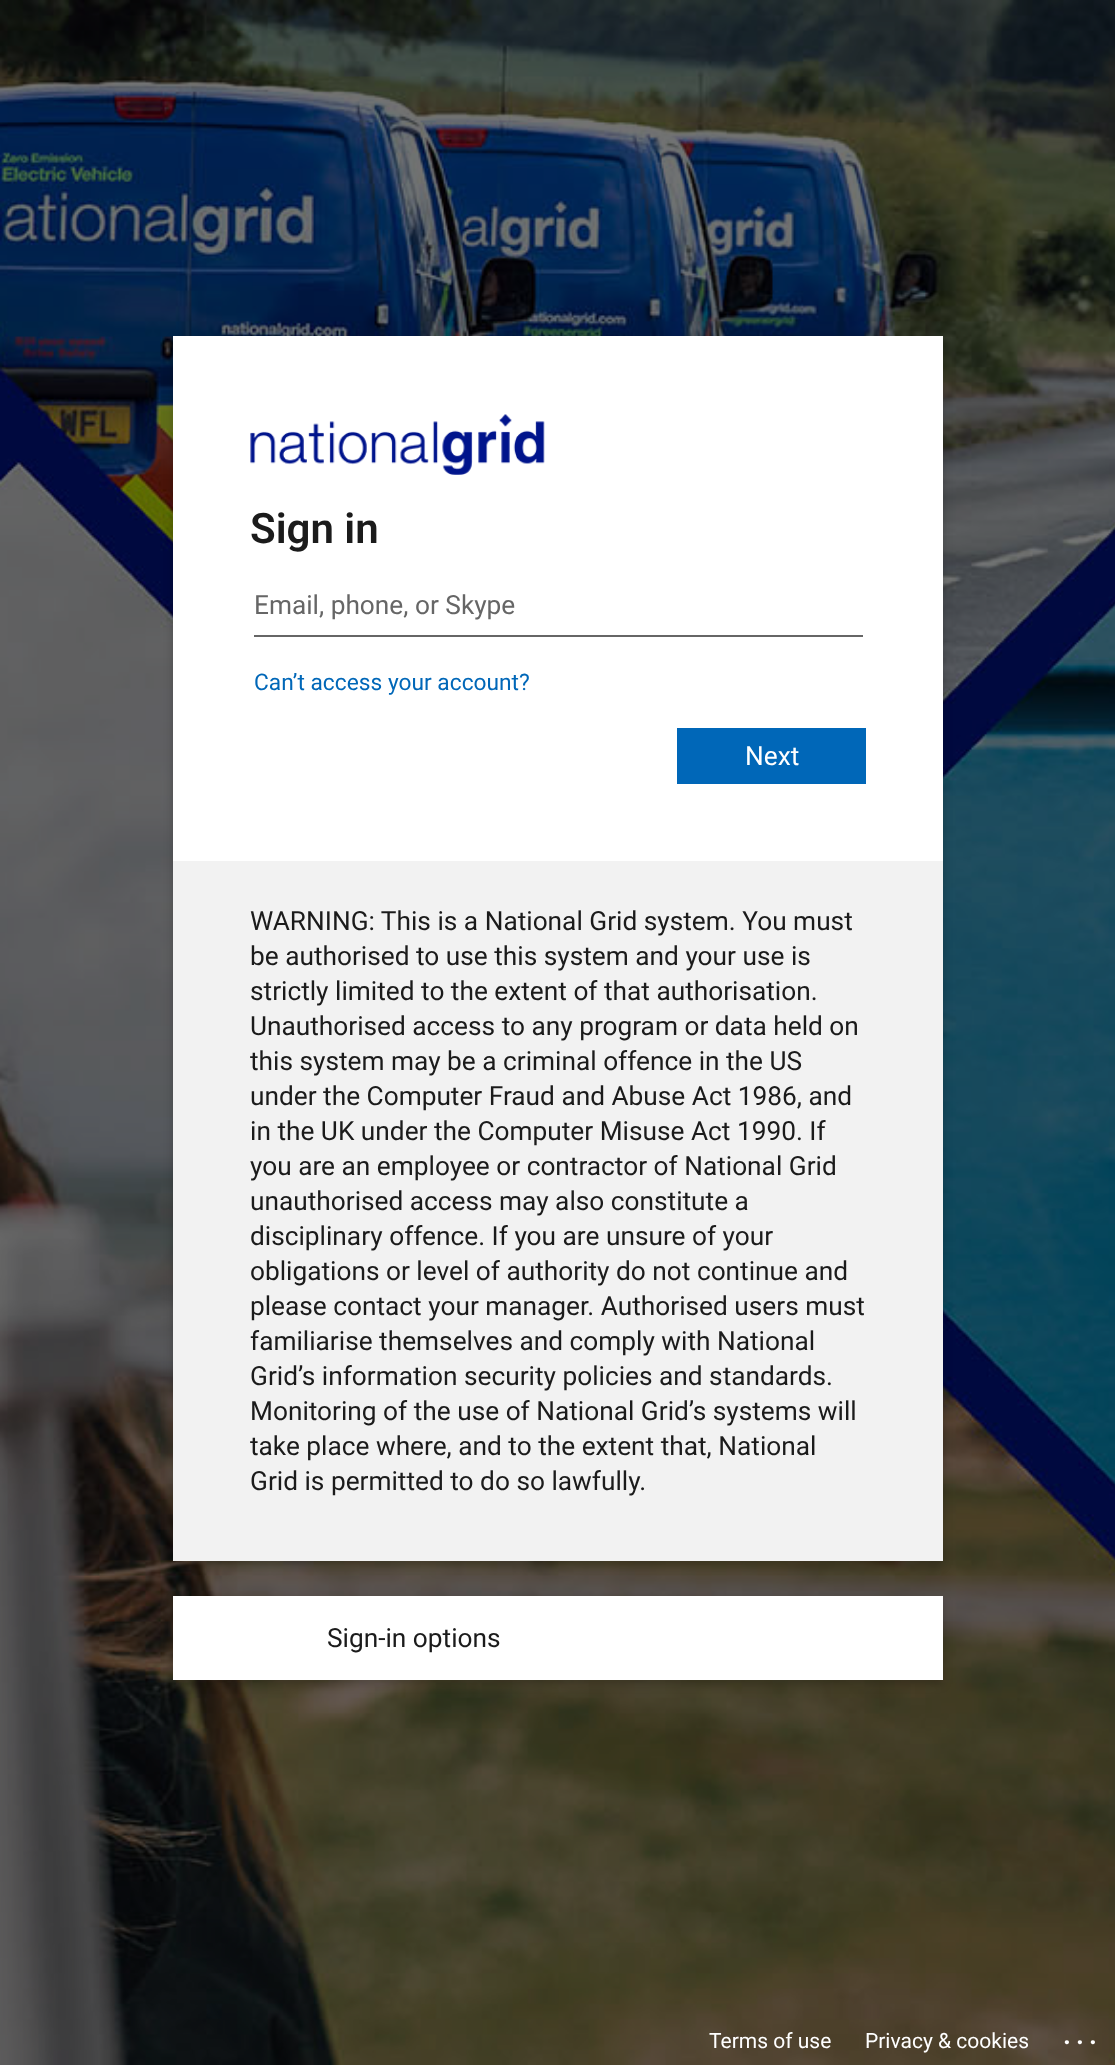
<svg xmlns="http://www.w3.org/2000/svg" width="1115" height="2065">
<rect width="100%" height="100%" fill="#fff"/>
<image x="0" y="0" width="1115" height="2065" href="media/1.png"/>
<rect x="173" y="340" width="770" height="1225" fill="#00000033" filter="blur(5px)"/>
<rect x="173" y="336" width="770" height="525" fill="#fff"/>
<image x="250" y="414" width="295" height="61" href="media/2.png"/>
<text x="250" y="543" style="font-family:Roboto;font-size:42px;font-weight:600;fill:#1b1b1b">Sign in</text>
<rect x="254" y="635" width="609" height="2" fill="#666"/>
<text x="254" y="614" style="font-family:Roboto;font-size:26.25px;fill:#666">Email, phone, or Skype</text>
<text x="254" y="690" style="font-family:Roboto;font-size:22.75px;fill:#0067b8">Can’t access your account?</text>
<rect x="677" y="728" width="189" height="56" fill="#0067b8"/>
<text x="745" y="765" style="font-family:Roboto;font-size:26.25px;fill:#fff">Next</text>
<rect x="173" y="861" width="770" height="700" fill="#f2f2f2"/>
<text x="250" y="930" style="font-family:Roboto;font-size:26.25px;fill:#1b1b1b">WARNING: This is a National Grid system. You must</text>
<text x="250" y="965" style="font-family:Roboto;font-size:26.25px;fill:#1b1b1b">be authorised to use this system and your use is</text>
<text x="250" y="1000" style="font-family:Roboto;font-size:26.25px;fill:#1b1b1b">strictly limited to the extent of that authorisation.</text>
<text x="250" y="1035" style="font-family:Roboto;font-size:26.25px;fill:#1b1b1b">Unauthorised access to any program or data held on</text>
<text x="250" y="1070" style="font-family:Roboto;font-size:26.25px;fill:#1b1b1b">this system may be a criminal offence in the US</text>
<text x="250" y="1105" style="font-family:Roboto;font-size:26.25px;fill:#1b1b1b">under the Computer Fraud and Abuse Act 1986, and</text>
<text x="250" y="1140" style="font-family:Roboto;font-size:26.25px;fill:#1b1b1b">in the UK under the Computer Misuse Act 1990. If</text>
<text x="250" y="1175" style="font-family:Roboto;font-size:26.25px;fill:#1b1b1b">you are an employee or contractor of National Grid</text>
<text x="250" y="1210" style="font-family:Roboto;font-size:26.25px;fill:#1b1b1b">unauthorised access may also constitute a</text>
<text x="250" y="1245" style="font-family:Roboto;font-size:26.25px;fill:#1b1b1b">disciplinary offence. If you are unsure of your</text>
<text x="250" y="1280" style="font-family:Roboto;font-size:26.25px;fill:#1b1b1b">obligations or level of authority do not continue and</text>
<text x="250" y="1315" style="font-family:Roboto;font-size:26.25px;fill:#1b1b1b">please contact your manager. Authorised users must</text>
<text x="250" y="1350" style="font-family:Roboto;font-size:26.25px;fill:#1b1b1b">familiarise themselves and comply with National</text>
<text x="250" y="1385" style="font-family:Roboto;font-size:26.25px;fill:#1b1b1b">Grid’s information security policies and standards.</text>
<text x="250" y="1420" style="font-family:Roboto;font-size:26.25px;fill:#1b1b1b">Monitoring of the use of National Grid’s systems will</text>
<text x="250" y="1455" style="font-family:Roboto;font-size:26.25px;fill:#1b1b1b">take place where, and to the extent that, National</text>
<text x="250" y="1490" style="font-family:Roboto;font-size:26.25px;fill:#1b1b1b">Grid is permitted to do so lawfully.</text>
<rect x="173" y="1600" width="770" height="84" fill="#00000033" filter="blur(5px)"/>
<rect x="173" y="1596" width="770" height="84" fill="#fff"/>
<text x="327" y="1647" style="font-family:Roboto;font-size:26.25px;fill:#1b1b1b">Sign-in options</text>
<text x="709" y="2048" style="font-family:Roboto;font-size:21px;fill:#fff">Terms of use</text>
<text x="865" y="2048" style="font-family:Roboto;font-size:21px;fill:#fff">Privacy &amp; cookies</text>
<text x="1063" y="2044" style="font-family:Roboto;font-size:28px;font-weight:600;letter-spacing:5px;fill:#fff">...</text>
</svg>
